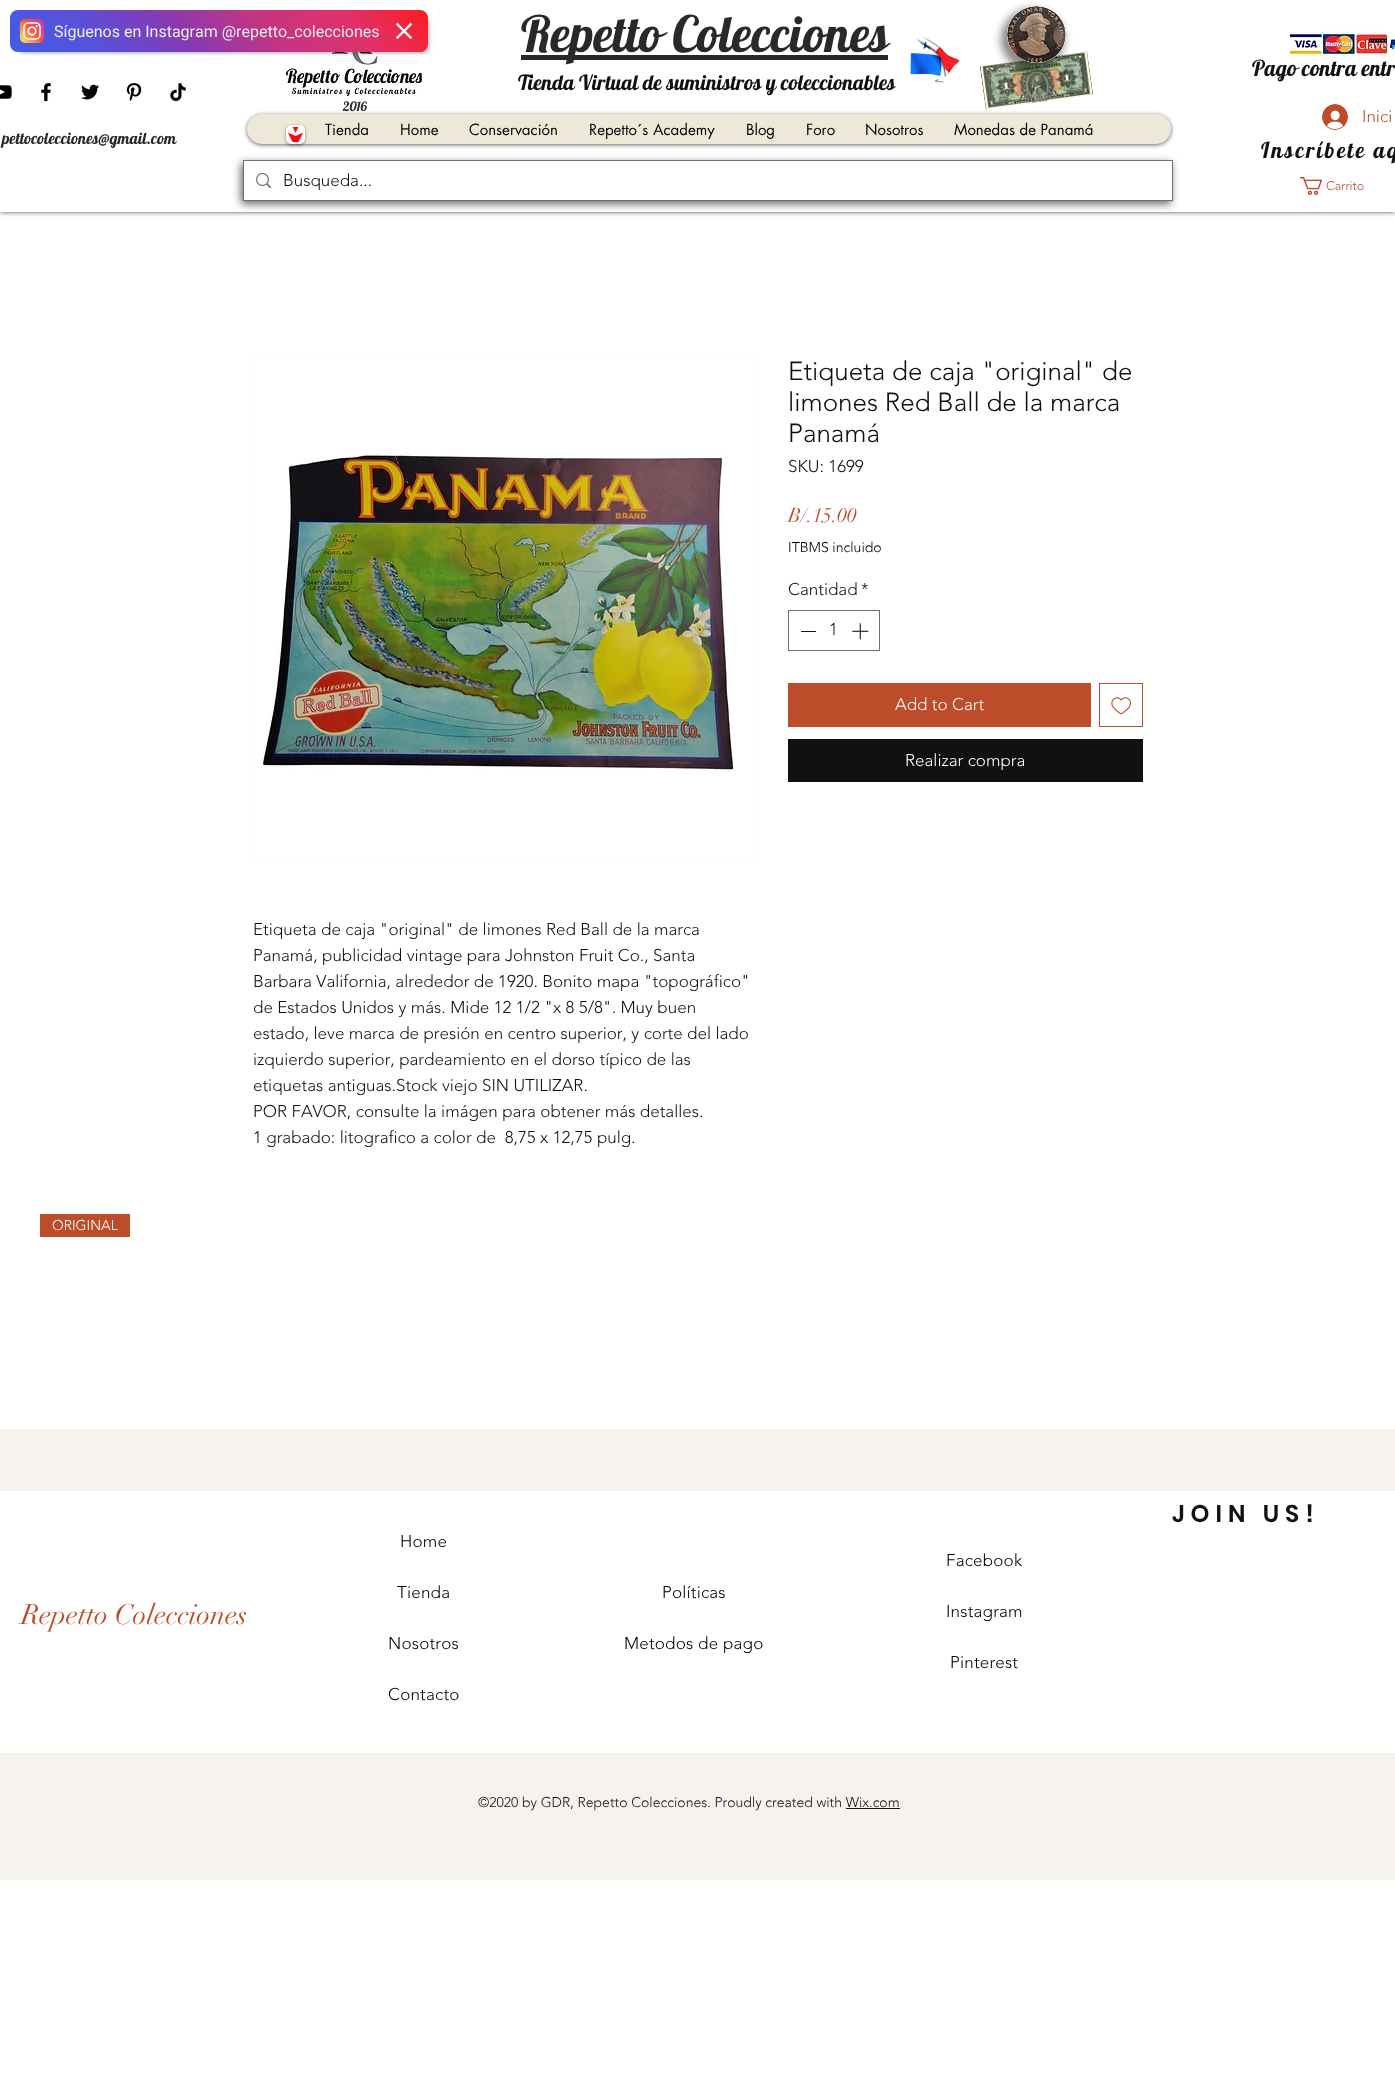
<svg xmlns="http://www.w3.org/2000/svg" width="1395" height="2080">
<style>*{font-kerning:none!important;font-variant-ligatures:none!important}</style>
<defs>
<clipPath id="clip1"><path d="M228 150h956v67h-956zm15 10h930v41h-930z" clip-rule="evenodd"/></clipPath>
<linearGradient id="g1" gradientUnits="userSpaceOnUse" x1="104" y1="146" x2="334" y2="-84"><stop offset="0" stop-color="#405de6"/><stop offset="0.2" stop-color="#5851db"/><stop offset="0.4" stop-color="#833ab4"/><stop offset="0.6" stop-color="#c13584"/><stop offset="0.8" stop-color="#e1306c"/><stop offset="1" stop-color="#fd1d1d"/></linearGradient>
</defs>
<rect width="100%" height="100%" fill="#fff"/>
<rect width="1395" height="212" fill="#000000b3" filter="blur(2.5px)"/>
<rect width="1395" height="212" fill="#fff"/>
<rect x="521" y="55" width="367" height="5" fill="#292929"/>
<text x="521" y="52" style="font-family:Lobster;font-size:50px;fill:#292929">Repetto Colecciones</text>
<image x="910" y="36" width="50" height="47" href="media/1.png"/>
<image x="980" y="51" width="113" height="59" href="media/3.png"/>
<rect x="1001" y="9" width="63" height="61" rx="30.5" fill="#0000007a" filter="blur(4px)"/>
<ellipse cx="1036.5" cy="34.5" rx="29.5" ry="28.5" fill="#fff"/>
<image x="1007" y="6" width="59" height="57" href="media/2.png"/>
<text x="518" y="90" style="font-family:Lobster;font-size:21px;fill:#111">Tienda Virtual de suministros</text>
<text x="766" y="90" style="font-family:Lobster;font-size:21px;fill:#111">y coleccionables</text>
<text x="343" y="111" style="font-family:Lobster;font-size:13px;fill:#292929">2016</text>
<rect x="247" y="115" width="924" height="30" rx="15" fill="#00000099" filter="blur(2px)"/>
<rect x="247" y="114" width="924" height="30" rx="15" fill="#eee8d8"/>
<text x="325" y="135" style="font-family:futura;font-size:15px;fill:#000">Tienda</text>
<text x="400" y="135" style="font-family:futura;font-size:15px;fill:#000">Home</text>
<text x="469" y="135" style="font-family:futura;font-size:15px;fill:#000">Conservación</text>
<text x="589" y="135" style="font-family:futura;font-size:15px;fill:#000">Repetto´s Academy</text>
<text x="746" y="135" style="font-family:futura;font-size:15px;fill:#000">Blog</text>
<text x="806" y="135" style="font-family:futura;font-size:15px;fill:#000">Foro</text>
<text x="865" y="135" style="font-family:futura;font-size:15px;fill:#000">Nosotros</text>
<text x="954" y="135" style="font-family:futura;font-size:15px;fill:#000">Monedas de Panamá</text>
<g clip-path="url(#clip1)">
<rect x="241" y="163" width="930" height="41" fill="#00000099" filter="blur(4px)"/>
</g>
<rect x="243.5" y="160.5" width="929" height="40" fill="none" stroke="#707070"/>
<image x="256" y="173" width="15" height="15" href="media/4.png"/>
<text x="283" y="186" style="font-family:'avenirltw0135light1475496';font-size:17px;font-weight:300;fill:#111">Busqueda...</text>
<image x="1288" y="27" width="107" height="32" href="media/5.png"/>
<image x="286" y="51" width="136" height="45" href="media/6.png"/>
<text x="1252" y="76" style="font-family:Lobster;font-size:22px;fill:#111">Pago contra entr</text>
<image x="0" y="85" width="12" height="14" href="media/7.png"/>
<image x="41" y="82" width="10" height="20" href="media/8.png"/>
<image x="81" y="84" width="18" height="16" href="media/9.png"/>
<image x="126" y="82" width="16" height="19" href="media/10.png"/>
<image x="170" y="83" width="16" height="19" href="media/11.png"/>
<image x="1322" y="104" width="26" height="26" href="media/12.png"/>
<text x="1362" y="122" style="font-family:'avenirltw0135light1475496';font-size:17px;font-weight:300;fill:#bc4c2a">Inici</text>
<text x="2" y="144" style="font-family:Lobster;font-size:16px;fill:#292929">pettocolecciones@gmail.com</text>
<rect x="286" y="126" width="19" height="19" rx="5" fill="#00000080" filter="blur(1.5px)"/>
<rect x="287" y="126" width="17" height="17" rx="4" fill="#fff" stroke="#fff" stroke-width="2"/>
<image x="288" y="127" width="15" height="15" href="media/13.png"/>
<text x="1261" y="158" style="font-family:Lobster;font-size:22px;letter-spacing:2.25px;fill:#111">Inscríbete aq</text>
<image x="1300" y="177" width="23" height="18" href="media/14.png"/>
<text x="1326" y="190" style="font-family:'avenirltw0135light1475496';font-size:12.5px;font-weight:300;fill:#bc4c2a">Carrito</text>
<text x="788" y="380" style="font-family:'avenirltw0135light1475496';font-size:26px;font-weight:300;fill:#111">Etiqueta de caja "original" de</text>
<text x="788" y="411" style="font-family:'avenirltw0135light1475496';font-size:26px;font-weight:300;fill:#111">limones Red Ball de la marca</text>
<text x="788" y="442" style="font-family:'avenirltw0135light1475496';font-size:26px;font-weight:300;fill:#111">Panamá</text>
<text x="788" y="472" style="font-family:'avenirltw0135light1475496';font-size:17px;font-weight:300;fill:#111">SKU: 1699</text>
<text x="788" y="522" style="font-family:didot;font-size:20px;fill:#bc4c2a">B/.15.00</text>
<text x="788" y="552" style="font-family:'avenirltw0135light1475496';font-size:14px;font-weight:300;fill:#000">ITBMS incluido</text>
<text x="788" y="595" style="font-family:'avenirltw0135light1475496';font-size:17px;font-weight:300;fill:#111">Cantidad</text>
<text x="861" y="595" style="font-family:'avenirltw0135light1475496';font-size:17px;font-weight:300;fill:#111">*</text>
<rect x="788.5" y="610.5" width="91" height="40" fill="none" stroke="#707070"/>
<rect x="801" y="631" width="15" height="1" fill="#111"/>
<text x="829" y="635" style="font-family:'avenirltw0135light1475496';font-size:17px;font-weight:300;fill:#111">1</text>
<image x="852" y="623" width="17" height="17" href="media/15.png"/>
<rect x="788" y="683" width="303" height="44" fill="#bc4c2a"/>
<text x="895" y="710" style="font-family:'avenirltw0135light1475496';font-size:17px;font-weight:300;fill:#fff">Add to Cart</text>
<rect x="1099.5" y="683.5" width="43" height="43" fill="none" stroke="#bc4c2a"/>
<image x="1111" y="697" width="21" height="18" href="media/16.png"/>
<rect x="788" y="739" width="355" height="43" fill="#111"/>
<text x="905" y="766" style="font-family:'avenirltw0135light1475496';font-size:17px;font-weight:300;fill:#fff">Realizar compra</text>
<rect x="253.5" y="356.5" width="501" height="501" fill="none" stroke="#fafafa"/>
<image x="262" y="452" width="472" height="321" href="media/17.png"/>
<text x="253" y="935" style="font-family:'avenirltw0135light1475496';font-size:17px;font-weight:300;fill:#111">Etiqueta de caja "original" de limones Red Ball de la marca</text>
<text x="253" y="961" style="font-family:'avenirltw0135light1475496';font-size:17px;font-weight:300;fill:#111">Panamá, publicidad vintage para Johnston Fruit Co., Santa</text>
<text x="253" y="987" style="font-family:'avenirltw0135light1475496';font-size:17px;font-weight:300;fill:#111">Barbara Valifornia, alrededor de 1920. Bonito mapa "topográfico"</text>
<text x="253" y="1013" style="font-family:'avenirltw0135light1475496';font-size:17px;font-weight:300;fill:#111">de Estados Unidos y más. Mide 12 1/2 "x 8 5/8". Muy buen</text>
<text x="253" y="1039" style="font-family:'avenirltw0135light1475496';font-size:17px;font-weight:300;fill:#111">estado, leve marca de presión en centro superior, y corte del lado</text>
<text x="253" y="1065" style="font-family:'avenirltw0135light1475496';font-size:17px;font-weight:300;fill:#111">izquierdo superior, pardeamiento en el dorso típico de las</text>
<text x="253" y="1091" style="font-family:'avenirltw0135light1475496';font-size:17px;font-weight:300;fill:#111">etiquetas antiguas.Stock viejo SIN UTILIZAR.</text>
<text x="253" y="1117" style="font-family:'avenirltw0135light1475496';font-size:17px;font-weight:300;fill:#111">POR FAVOR, consulte la imágen para obtener más detalles.</text>
<text x="253" y="1143" style="font-family:'avenirltw0135light1475496';font-size:17px;font-weight:300;fill:#111" xml:space="preserve">1 grabado: litografico a color de  8,75 x 12,75 pulg.</text>
<rect x="40" y="1214" width="90" height="23" fill="#bc4c2a"/>
<text x="52" y="1230" style="font-family:'avenirltw0135light1475496';font-size:14px;font-weight:300;fill:#fff">ORIGINAL</text>
<rect y="1429" width="1395" height="451" fill="#f6f3ef"/>
<rect y="1491" width="1395" height="262" fill="#fff"/>
<text x="1172" y="1522" style="font-family:Poppins;font-size:24px;font-weight:600;letter-spacing:6px;fill:#111">JOIN US!</text>
<text x="21" y="1624" style="font-family:didot;font-size:28px;fill:#bc4c2a">Repetto Colecciones</text>
<text x="400" y="1547" style="font-family:'avenirltw0135light1475496';font-size:17px;font-weight:300;letter-spacing:0.2px;fill:#000">Home</text>
<text x="397" y="1598" style="font-family:'avenirltw0135light1475496';font-size:17px;font-weight:300;letter-spacing:0.2px;fill:#000">Tienda</text>
<text x="388" y="1649" style="font-family:'avenirltw0135light1475496';font-size:17px;font-weight:300;letter-spacing:0.2px;fill:#000">Nosotros</text>
<text x="388" y="1700" style="font-family:'avenirltw0135light1475496';font-size:17px;font-weight:300;letter-spacing:0.2px;fill:#000">Contacto</text>
<text x="662" y="1598" style="font-family:'avenirltw0135light1475496';font-size:17px;font-weight:300;letter-spacing:0.2px;fill:#000">Políticas</text>
<text x="624" y="1649" style="font-family:'avenirltw0135light1475496';font-size:17px;font-weight:300;letter-spacing:0.2px;fill:#000">Metodos de pago</text>
<text x="946" y="1566" style="font-family:'avenirltw0135light1475496';font-size:17px;font-weight:300;letter-spacing:0.2px;fill:#000">Facebook</text>
<text x="946" y="1617" style="font-family:'avenirltw0135light1475496';font-size:17px;font-weight:300;letter-spacing:0.2px;fill:#000">Instagram</text>
<text x="950" y="1668" style="font-family:'avenirltw0135light1475496';font-size:17px;font-weight:300;letter-spacing:0.2px;fill:#000">Pinterest</text>
<text x="478" y="1807" style="font-family:'avenirltw0135light1475496';font-size:14px;font-weight:300;fill:#111">©2020 by GDR, Repetto Colecciones. Proudly created with Wix.com</text>
<rect x="846" y="1808" width="54" height="1" fill="#111"/>
<rect x="20" y="20" width="408" height="32" rx="3" fill="#223c5099" filter="blur(2.5px)"/>
<rect x="10" y="10" width="418" height="42" rx="8" fill="url(#g1)"/>
<image x="20" y="19" width="24" height="24" href="media/18.png"/>
<text x="54" y="37" style="font-family:Roboto;font-size:16px;fill:#eee">Síguenos en Instagram @repetto_colecciones</text>
<image x="395" y="22" width="18" height="18" href="media/19.png"/>
</svg>
